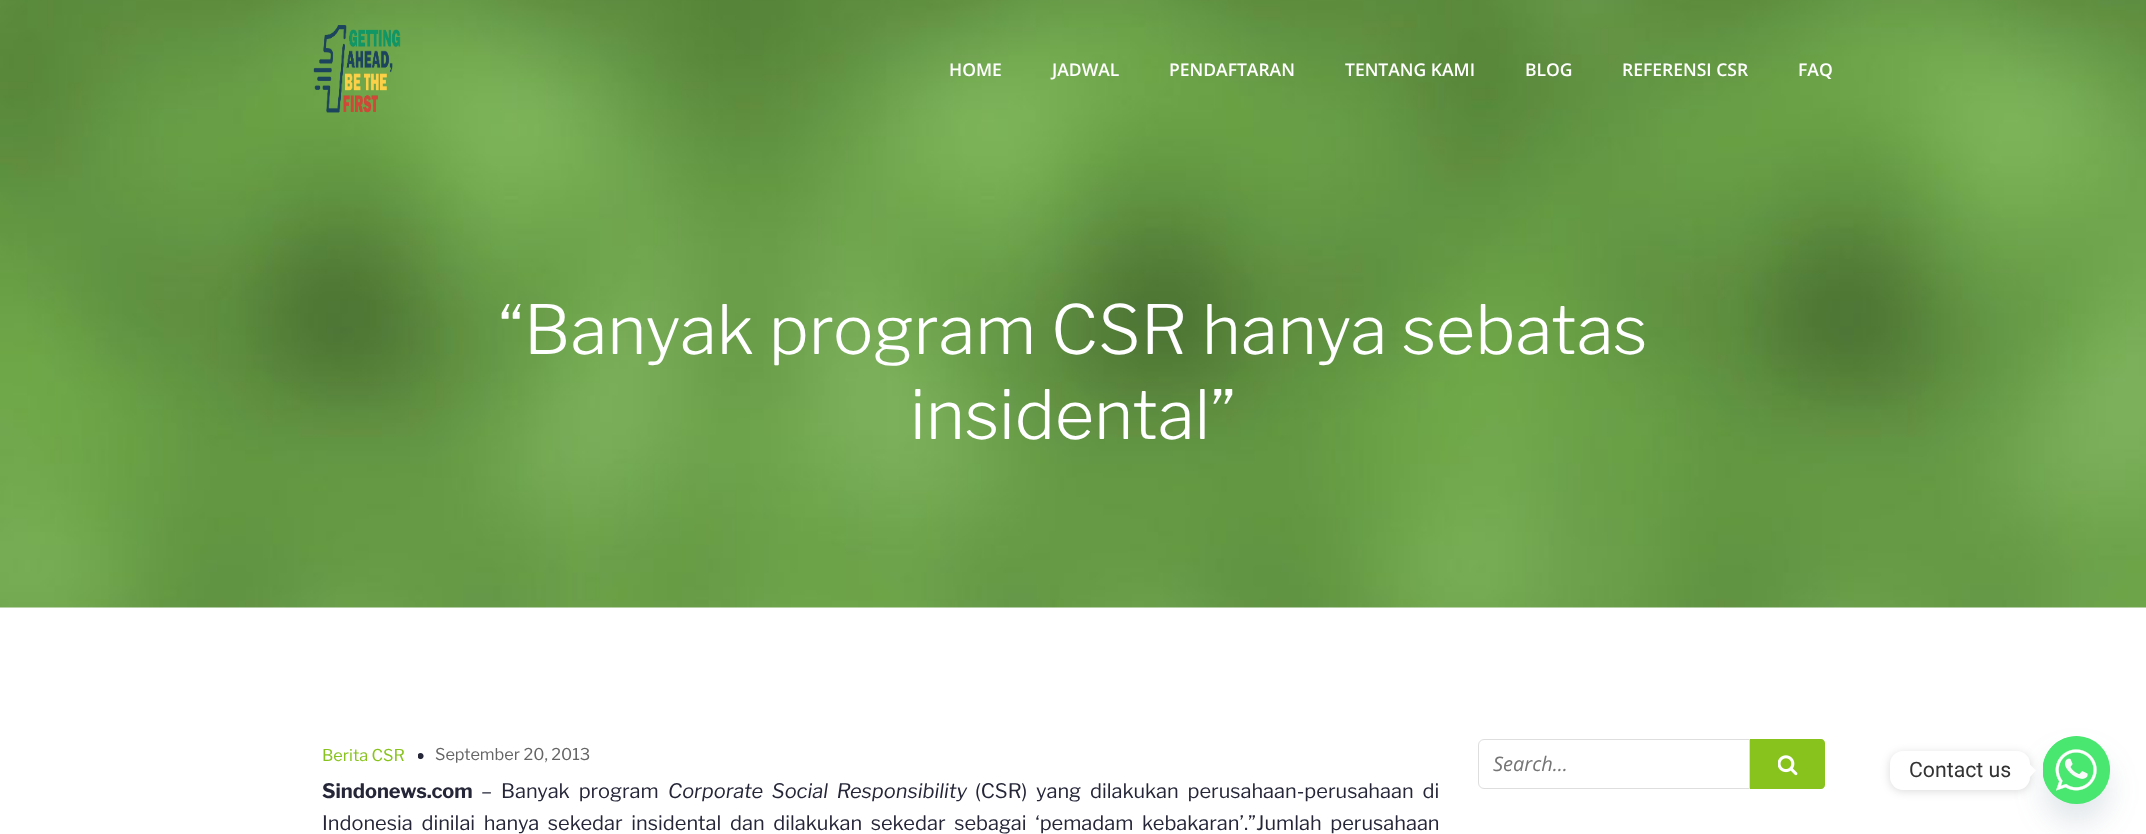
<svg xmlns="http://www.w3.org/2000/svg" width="2146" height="834">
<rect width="100%" height="100%" fill="#fff"/>
<image x="0" y="0" width="2146" height="608" href="media/2.png"/>
<image x="313" y="25" width="88" height="88" href="media/1.png"/>
<text x="949" y="76" style="font-family:Open Sans;font-size:17.5px;font-weight:600;fill:#fff">HOME</text>
<text x="1052" y="76" style="font-family:Open Sans;font-size:17.5px;font-weight:600;fill:#fff">JADWAL</text>
<text x="1169" y="76" style="font-family:Open Sans;font-size:17.5px;font-weight:600;fill:#fff">PENDAFTARAN</text>
<text x="1345" y="76" style="font-family:Open Sans;font-size:17.5px;font-weight:600;fill:#fff">TENTANG KAMI</text>
<text x="1525" y="76" style="font-family:Open Sans;font-size:17.5px;font-weight:600;fill:#fff">BLOG</text>
<text x="1622" y="76" style="font-family:Open Sans;font-size:17.5px;font-weight:600;fill:#fff">REFERENSI CSR</text>
<text x="1798" y="76" style="font-family:Open Sans;font-size:17.5px;font-weight:600;fill:#fff">FAQ</text>
<text x="498" y="354" style="font-family:Libre Franklin;font-size:67.5px;font-weight:300;fill:#fff">“Banyak program CSR hanya sebatas</text>
<text x="910" y="439" style="font-family:Libre Franklin;font-size:67.5px;font-weight:300;fill:#fff">insidental”</text>
<text x="322" y="761" style="font-family:Libre Franklin;font-size:16.25px;fill:#88c31d">Berita CSR</text>
<image x="418" y="753" width="6" height="7" href="media/3.png"/>
<text x="435" y="760" style="font-family:Libre Franklin;font-size:16.25px;fill:#656565">September 20, 2013</text>
<text x="322" y="798" style="font-family:Libre Franklin;font-size:20px;font-weight:bold;fill:#252638">Sindonews.com</text>
<text x="481" y="798" word-spacing="4.5" style="font-family:Libre Franklin;font-size:20px;fill:#252638">– Banyak program</text>
<text x="668" y="798" word-spacing="4.5" style="font-family:Libre Franklin;font-size:20px;font-style:italic;fill:#252638">Corporate Social Responsibility</text>
<text x="975" y="798" word-spacing="4.5" style="font-family:Libre Franklin;font-size:20px;fill:#252638">(CSR) yang dilakukan perusahaan-perusahaan di</text>
<text x="322" y="830" word-spacing="4.4" style="font-family:Libre Franklin;font-size:20px;fill:#252638">Indonesia dinilai hanya sekedar insidental dan dilakukan sekedar sebagai ‘pemadam kebakaran’.”Jumlah perusahaan</text>
<path d="M1484 739.5h265.5v49h-265.5c-3 0-5.5-2.5-5.5-5.5v-38c0-3 2.5-5.5 5.5-5.5z" fill="none" stroke="#dedede"/>
<text x="1493" y="771" style="font-family:Open Sans;font-size:20px;font-style:italic;fill:#757575">Search...</text>
<path d="M1750 739h71c2 0 4 2 4 4v42c0 2-2 4-4 4h-71z" fill="#88c31d"/>
<image x="1778" y="755" width="20" height="21" href="media/4.png"/>
<rect x="2043" y="756" width="67" height="68" rx="33.5" fill="#49687e29" filter="blur(15px)"/>
<rect x="2043" y="736" width="67" height="68" rx="33.5" fill="#49e670"/>
<image x="2043" y="736" width="67" height="68" href="media/5.png"/>
<rect x="1890" y="753" width="140" height="38" rx="13" fill="#00000026" filter="blur(5px)"/>
<rect x="1890" y="751" width="140" height="39" rx="13" fill="#fff"/>
<text x="1909" y="777" style="font-family:Roboto;font-size:21.25px;fill:#333">Contact us</text>
<path d="M2030 777v-12.5l6 6z" fill="#fff"/>
</svg>
